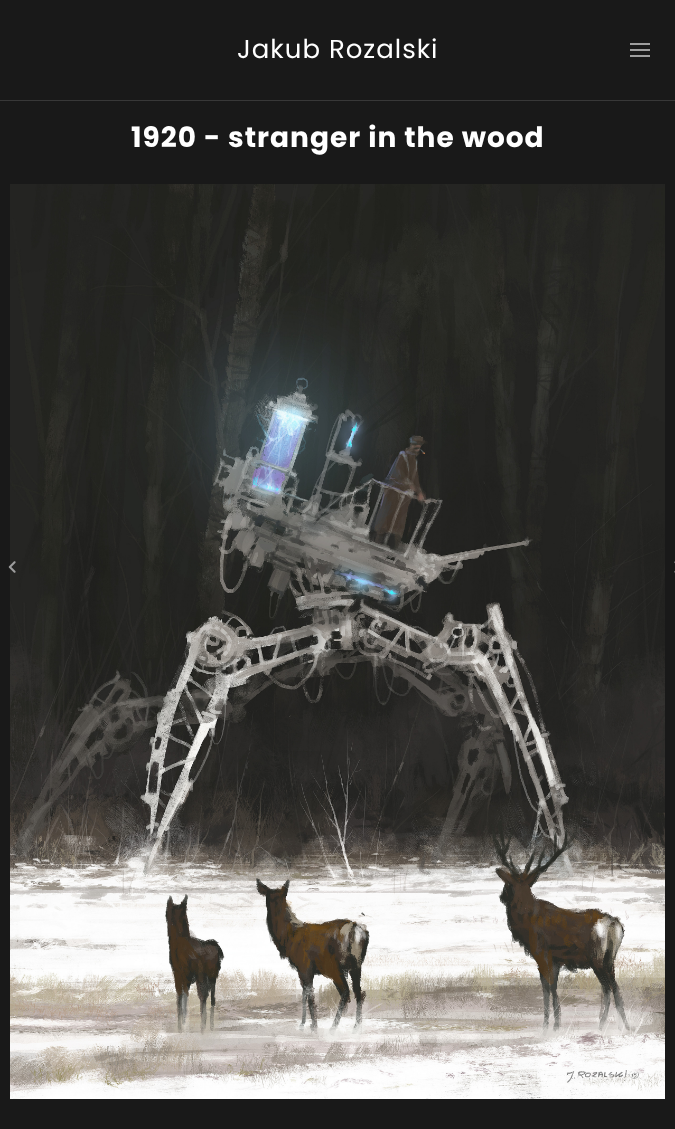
<svg xmlns="http://www.w3.org/2000/svg" width="675" height="1129">
<rect width="100%" height="100%" fill="#191919"/>
<rect y="100" width="675" height="1" fill="#383838"/>
<text x="237" y="58" style="font-family:Poppins;font-size:26px;letter-spacing:1px;fill:#fff">Jakub Rozalski</text>
<rect x="630" y="43" width="20" height="2" fill="#9e9e9e"/>
<rect x="630" y="49" width="20" height="2" fill="#9e9e9e"/>
<rect x="630" y="55" width="20" height="2" fill="#9e9e9e"/>
<text x="131" y="147" style="font-family:Poppins;font-size:28px;font-weight:bold;letter-spacing:1px;fill:#fff">1920 - stranger in the wood</text>
<image x="10" y="184" width="655" height="915" href="media/1.png"/>
<image x="8" y="561" width="8" height="12" href="media/2.png"/>
<image x="674" y="561" width="1" height="12" href="media/3.png"/>
</svg>
